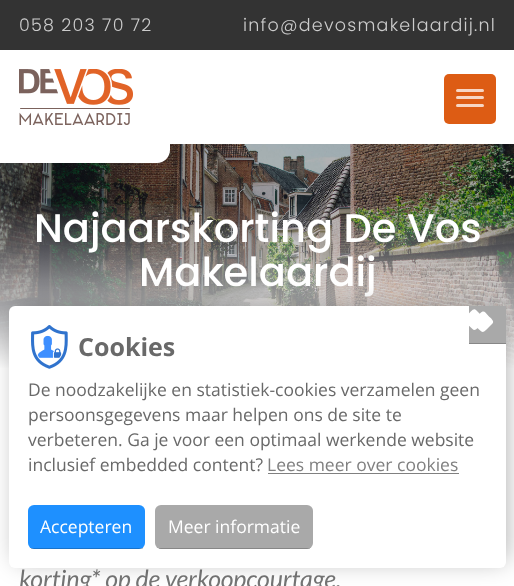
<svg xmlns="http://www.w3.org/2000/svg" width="514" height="586">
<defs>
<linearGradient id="g1" gradientUnits="userSpaceOnUse" x1="258" y1="144" x2="258" y2="369"><stop offset="0.25" stop-color="#fff" stop-opacity="0"/><stop offset="1" stop-color="#fff"/></linearGradient>
</defs>
<rect width="100%" height="100%" fill="#fff"/>
<rect width="514" height="50" fill="#333"/>
<text x="19" y="31" style="font-family:Poppins;font-size:17.5px;font-weight:300;letter-spacing:1.25px;fill:#ccc">058 203 70 72</text>
<text x="243" y="31" style="font-family:Poppins;font-size:17.5px;font-weight:300;letter-spacing:1.25px;fill:#ccc">info@devosmakelaardij.nl</text>
<image x="0" y="144" width="514" height="224" href="media/2.png"/>
<path d="M-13 50h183v100c0 7-6 13-13 13h-157c-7 0-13-6-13-13z" fill="#fff"/>
<image x="19" y="69" width="114" height="56" href="media/1.png"/>
<rect x="444" y="74" width="52" height="50" rx="5" fill="#dd5c14"/>
<rect x="456" y="89" width="28" height="3" rx="1.5" fill="#f7d6c4"/>
<rect x="456" y="96" width="28" height="3" rx="1.5" fill="#f7d6c4"/>
<rect x="456" y="104" width="28" height="3" rx="1.5" fill="#f7d6c4"/>
<rect y="204" width="514" height="164" fill="url(#g1)"/>
<text x="34" y="242" style="font-family:Poppins;font-size:40px;font-weight:500;fill:#fff">Najaarskorting De Vos</text>
<text x="139" y="286" style="font-family:Poppins;font-size:40px;font-weight:500;fill:#fff">Makelaardij</text>
<text x="19" y="588" style="font-family:Lato;font-size:25px;font-style:italic;fill:#757575">korting* op de verkoopcourtage.</text>
<rect x="16" y="308" width="490" height="253" rx="2.5" fill="#00000054" filter="blur(12px)"/>
<rect x="9" y="306" width="497" height="262" rx="6" fill="#fff"/>
<rect x="469" y="306" width="37" height="37" fill="#a9a9a9"/>
<rect x="469" y="343" width="37" height="1" fill="#878787"/>
<path d="M473.5 320l6.5-6.5c4-4 5-1 8.5 2.5c1.5 1.5 6.5 5 4 7.5l-6.5 6.5c-4 4-5 1-9-2.5c-1.5-1.5-6-5-3.5-7.5z" fill="#fff"/>
<path d="M476 310l6.5 6.5c4 4.5 1 5.5-2.5 9c-1.5 1.5-5 6.5-7.5 3.5l-6.5-6c-4-4.5-1-5.5 2.5-9c1.5-1.5 5-6.5 7.5-4z" fill="#fff"/>
<image x="31" y="325" width="37" height="44" href="media/3.png"/>
<text x="78" y="356" style="font-family:Open Sans;font-size:25px;font-weight:bold;fill:#696969">Cookies</text>
<text x="28" y="396" style="font-family:Open Sans;font-size:17.5px;fill:#696969">De noodzakelijke en statistiek-cookies verzamelen geen</text>
<text x="28" y="421" style="font-family:Open Sans;font-size:17.5px;fill:#696969">persoonsgegevens maar helpen ons de site te</text>
<text x="28" y="446" style="font-family:Open Sans;font-size:17.5px;fill:#696969">verbeteren. Ga je voor een optimaal werkende website</text>
<text x="28" y="471" style="font-family:Open Sans;font-size:17.5px;fill:#696969">inclusief embedded content?</text>
<text x="267" y="471" style="font-family:Open Sans;font-size:17.5px;fill:#808080">Lees meer over cookies</text>
<rect x="268" y="473" width="191" height="1" fill="#808080"/>
<rect x="28" y="505" width="117" height="44" rx="6" fill="#1e90ff"/>
<rect x="31" y="548" width="112" height="1" fill="#00000033"/>
<text x="40" y="533" style="font-family:Open Sans;font-size:17.5px;fill:#fff">Accepteren</text>
<rect x="155" y="505" width="158" height="44" rx="6" fill="#a9a9a9"/>
<rect x="159" y="548" width="151" height="1" fill="#00000033"/>
<text x="168" y="533" style="font-family:Open Sans;font-size:17.5px;fill:#fff">Meer informatie</text>
</svg>
